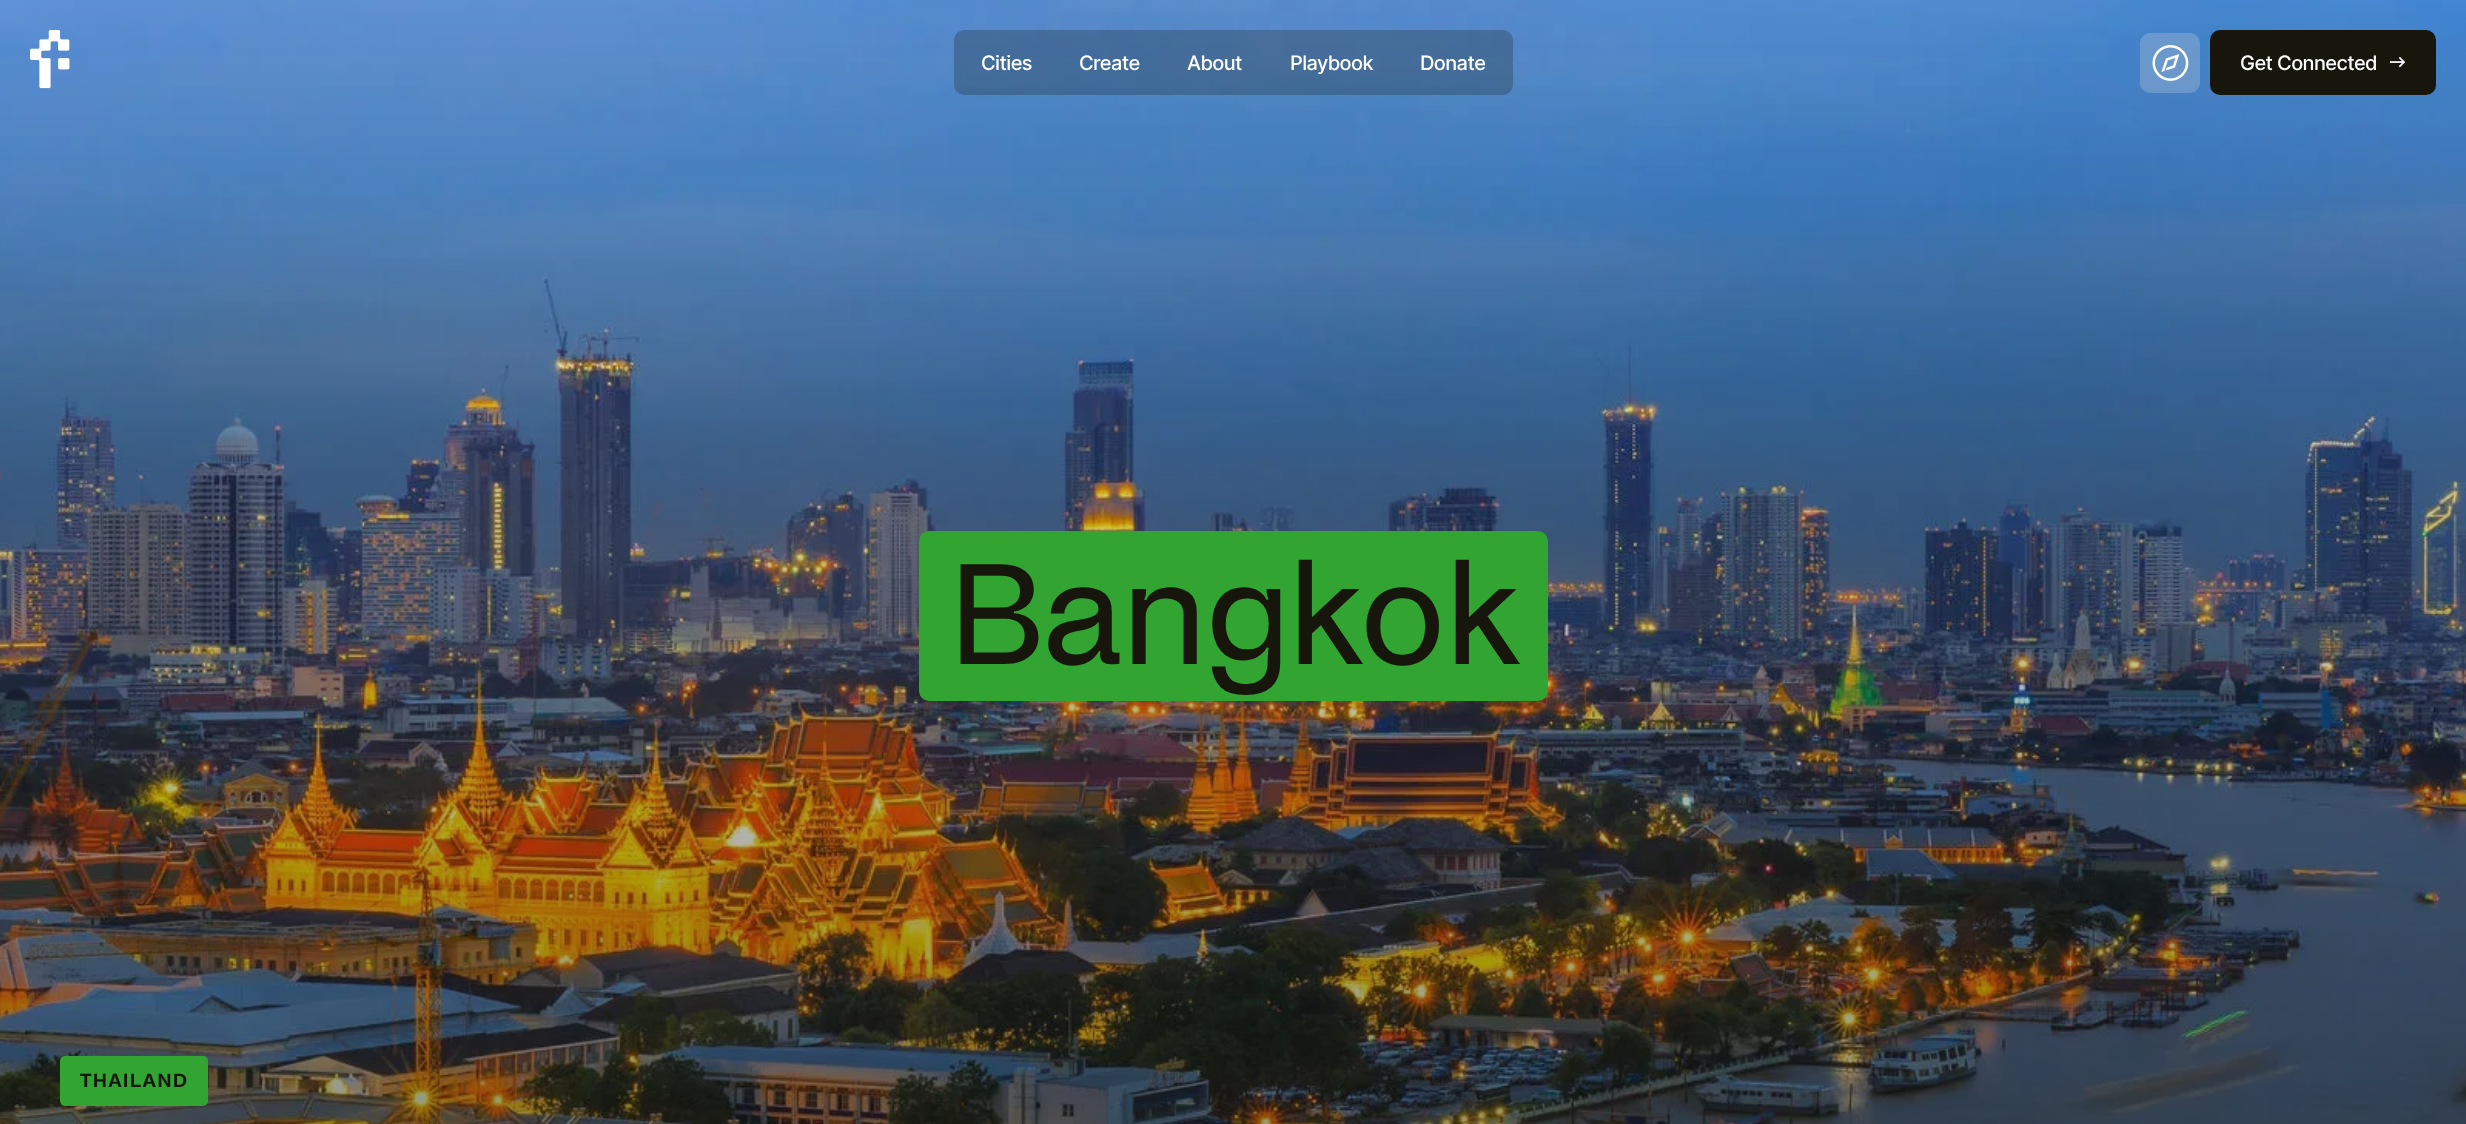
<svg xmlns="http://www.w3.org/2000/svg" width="2466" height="1124">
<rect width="100%" height="100%" fill="#fff"/>
<image x="0" y="0" width="2466" height="1124" href="media/4.png"/>
<image x="30" y="30" width="40" height="59" href="media/1.png"/>
<rect x="954" y="30" width="559" height="65" rx="10" fill="#16160c3d"/>
<text x="981" y="70" style="font-family:Inter;font-size:20px;font-weight:500;letter-spacing:-0.6px;fill:#fff">Cities</text>
<text x="1079" y="70" style="font-family:Inter;font-size:20px;font-weight:500;letter-spacing:-0.6px;fill:#fff">Create</text>
<text x="1187" y="70" style="font-family:Inter;font-size:20px;font-weight:500;letter-spacing:-0.6px;fill:#fff">About</text>
<text x="1290" y="70" style="font-family:Inter;font-size:20px;font-weight:500;letter-spacing:-0.6px;fill:#fff">Playbook</text>
<text x="1420" y="70" style="font-family:Inter;font-size:20px;font-weight:500;letter-spacing:-0.6px;fill:#fff">Donate</text>
<rect x="2140" y="33" width="60" height="60" rx="10" fill="#e4e0d83d"/>
<image x="2152" y="45" width="37" height="36" href="media/2.png"/>
<rect x="2210" y="30" width="226" height="65" rx="10" fill="#16160c"/>
<text x="2240" y="70" style="font-family:Inter;font-size:20px;font-weight:500;letter-spacing:-0.6px;fill:#fff">Get Connected</text>
<image x="2390" y="56" width="16" height="12" href="media/3.png"/>
<rect x="919" y="531" width="629" height="170" rx="10" fill="#32a432"/>
<text x="948" y="664" style="font-family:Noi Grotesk;font-size:150px;letter-spacing:-1.75px;fill:#16160c">Bangkok</text>
<rect x="60" y="1056" width="148" height="50" rx="5" fill="#32a432"/>
<text x="80" y="1087" style="font-family:Noi Grotesk;font-size:20px;font-weight:600;letter-spacing:1.25px;fill:#16160c">THAILAND</text>
</svg>
